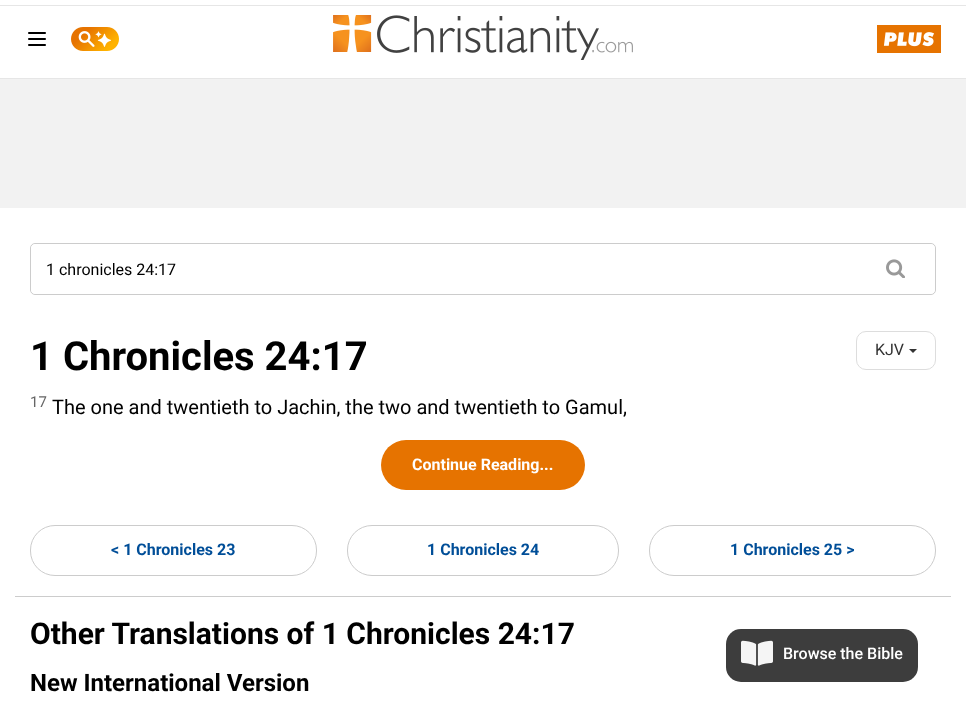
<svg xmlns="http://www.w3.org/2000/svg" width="966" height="702">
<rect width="100%" height="100%" fill="#fff"/>
<rect y="5" width="966" height="1" fill="#e6e6e6"/>
<rect y="78" width="966" height="1" fill="#e6e6e6"/>
<image x="28" y="32" width="18" height="14" href="media/1.png"/>
<image x="71" y="27" width="48" height="24" href="media/2.png"/>
<image x="333" y="15" width="300" height="45" href="media/3.png"/>
<image x="877" y="25" width="64" height="28" href="media/4.png"/>
<rect y="79" width="966" height="129" fill="#f2f2f2"/>
<rect x="30.5" y="243.5" width="905" height="51" rx="4.5" fill="none" stroke="#ccc"/>
<rect x="31" y="244" width="829" height="50" rx="5" fill="#fff"/>
<text x="46" y="275" style="font-family:Roboto;font-size:16px;fill:#000">1 chronicles 24:17</text>
<rect x="860" y="244" width="75" height="50" rx="5" fill="#fff"/>
<image x="886" y="259" width="19" height="19" href="media/5.png"/>
<text x="30" y="370" style="font-family:Roboto;font-size:40px;font-weight:bold;fill:#000">1 Chronicles 24:17</text>
<rect x="856.5" y="331.5" width="79" height="38" rx="9.5" fill="none" stroke="#ddd"/>
<text x="875" y="355" style="font-family:Roboto;font-size:16px;fill:#333">KJV</text>
<path d="M909 349h8l-4 4z" fill="#333"/>
<text x="30" y="407" style="font-family:Roboto;font-size:15px;fill:#666">17</text>
<text x="52" y="414" style="font-family:Roboto;font-size:20px;fill:#000">The one and twentieth to Jachin, the two and twentieth to Gamul,</text>
<rect x="381" y="440" width="204" height="50" rx="25" fill="#e67300"/>
<text x="412" y="470" style="font-family:Roboto;font-size:16px;font-weight:bold;fill:#fff">Continue Reading...</text>
<rect x="30.5" y="525.5" width="286" height="50" rx="24.5" fill="none" stroke="#ccc"/>
<text x="111" y="555" style="font-family:Roboto;font-size:16px;font-weight:bold;fill:#004e98">&lt; 1 Chronicles 23</text>
<rect x="347.5" y="525.5" width="271" height="50" rx="24.5" fill="none" stroke="#ccc"/>
<text x="427" y="555" style="font-family:Roboto;font-size:16px;font-weight:bold;fill:#004e98">1 Chronicles 24</text>
<rect x="649.5" y="525.5" width="286" height="50" rx="24.5" fill="none" stroke="#ccc"/>
<text x="730" y="555" style="font-family:Roboto;font-size:16px;font-weight:bold;fill:#004e98">1 Chronicles 25 &gt;</text>
<rect x="15" y="596" width="936" height="1" fill="#ccc"/>
<text x="30" y="644" style="font-family:Roboto;font-size:30px;font-weight:bold;fill:#000">Other Translations of 1 Chronicles 24:17</text>
<text x="30" y="691" style="font-family:Roboto;font-size:24px;font-weight:bold;fill:#000">New International Version</text>
<rect x="726" y="629" width="192" height="53" rx="15" fill="#3d3d3d"/>
<image x="741" y="640" width="32" height="26" href="media/6.png"/>
<text x="783" y="659" style="font-family:Roboto;font-size:16px;font-weight:500;fill:#fff">Browse the Bible</text>
</svg>
